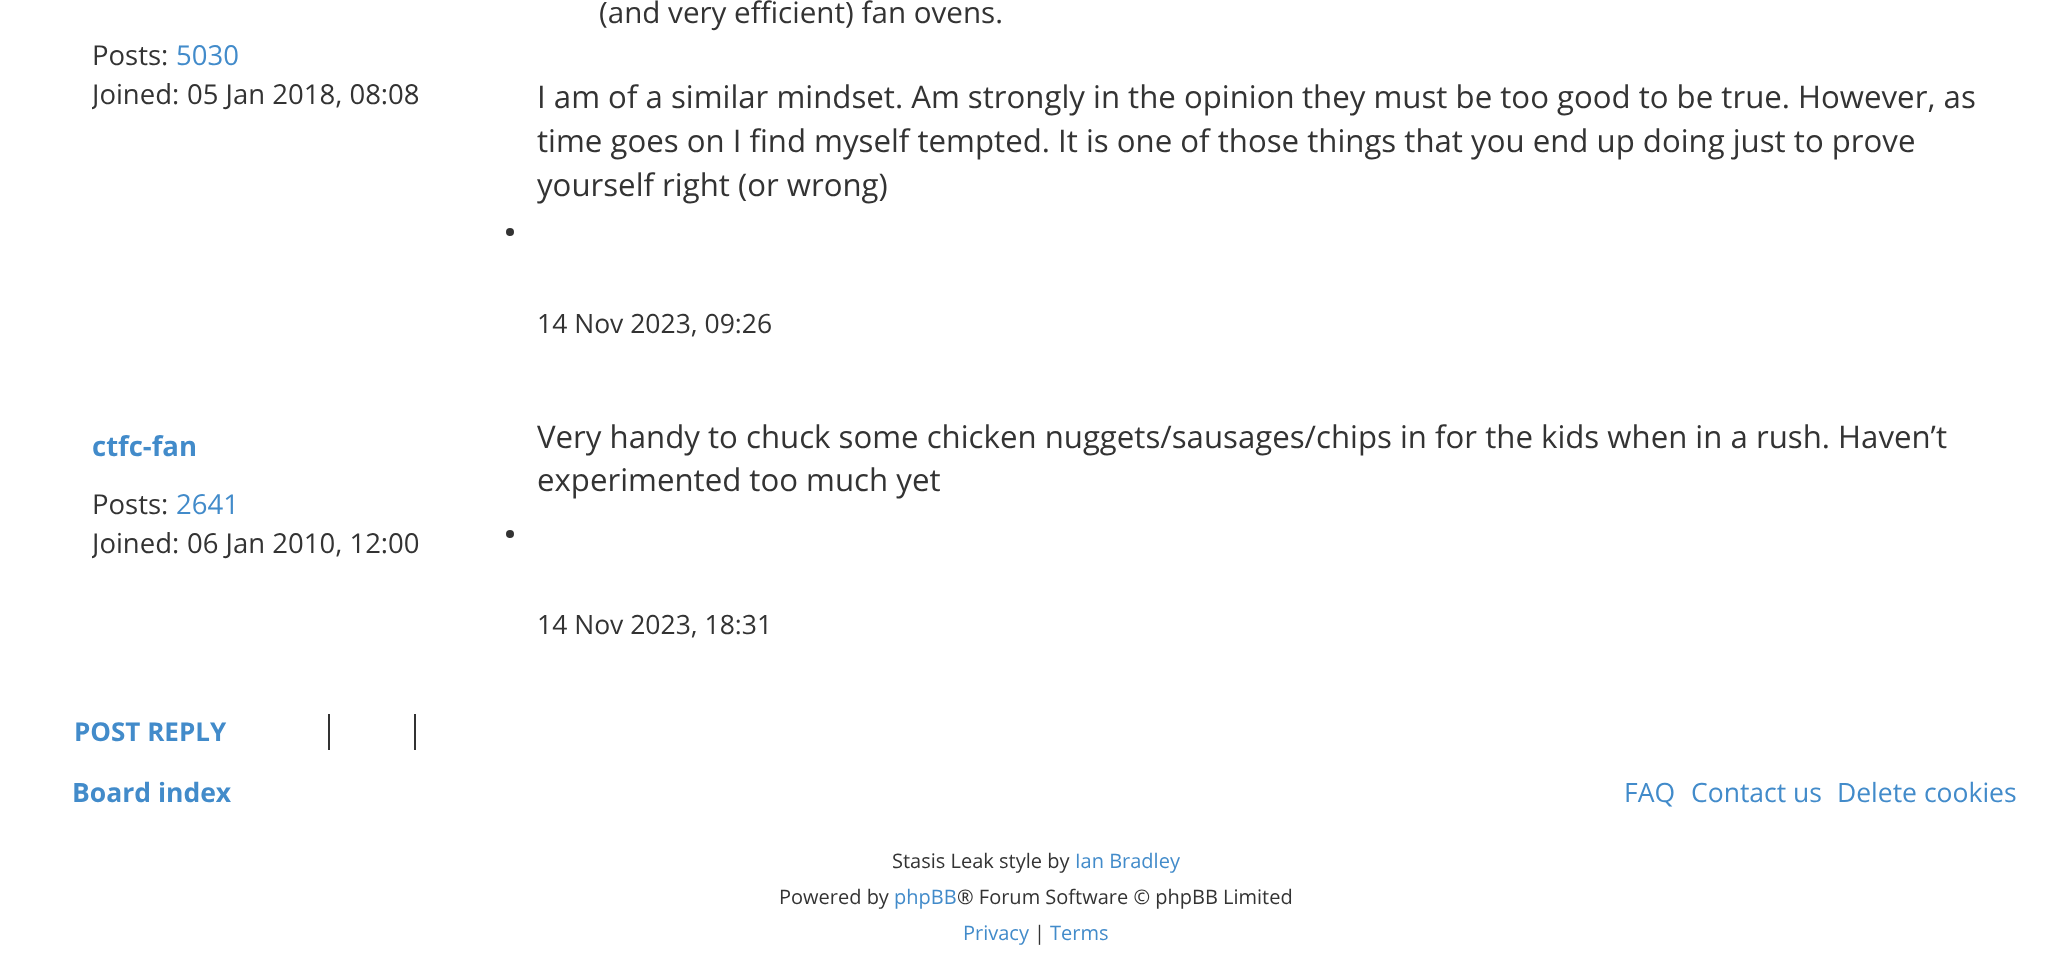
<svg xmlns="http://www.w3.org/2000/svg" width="2072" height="959">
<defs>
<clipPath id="clip1"><rect x="92" y="74" width="406" height="38"/></clipPath>
<clipPath id="clip2"><rect x="92" y="522" width="406" height="40"/></clipPath>
</defs>
<rect width="100%" height="100%" fill="#fff"/>
<text x="92" y="65" style="font-family:Open Sans;font-size:27.5px;fill:#333">Posts:</text>
<text x="176" y="65" style="font-family:Open Sans;font-size:27.5px;fill:#428bca">5030</text>
<g clip-path="url(#clip1)">
<text x="92" y="104" style="font-family:Open Sans;font-size:27.5px;fill:#333">Joined:</text>
</g>
<text x="187" y="104" style="font-family:Open Sans;font-size:27.5px;fill:#333">05 Jan 2018, 08:08</text>
<text x="599" y="23" style="font-family:Open Sans;font-size:29.6px;fill:#333">(and very efficient) fan ovens.</text>
<text x="537" y="108" style="font-family:Open Sans;font-size:31.2px;fill:#333">I am of a similar mindset. Am strongly in the opinion</text>
<text x="1302" y="108" style="font-family:Open Sans;font-size:31.2px;fill:#333">they must be too good to be true. However, as</text>
<text x="537" y="152" style="font-family:Open Sans;font-size:31.2px;fill:#333">time goes on I find myself tempted. It is one of those things that you end up doing just to prove</text>
<text x="537" y="196" style="font-family:Open Sans;font-size:31.2px;fill:#333">yourself right (or wrong)</text>
<circle cx="510" cy="232" r="4" fill="#333"/>
<text x="537" y="333" style="font-family:Open Sans;font-size:26.5px;fill:#333">14 Nov 2023, 09:26</text>
<text x="92" y="456" style="font-family:Open Sans;font-size:27.5px;font-weight:bold;fill:#428bca">ctfc-fan</text>
<text x="92" y="514" style="font-family:Open Sans;font-size:27.5px;fill:#333">Posts:</text>
<text x="176" y="514" style="font-family:Open Sans;font-size:27.5px;fill:#428bca">2641</text>
<g clip-path="url(#clip2)">
<text x="92" y="553" style="font-family:Open Sans;font-size:27.5px;fill:#333">Joined:</text>
</g>
<text x="187" y="553" style="font-family:Open Sans;font-size:27.5px;fill:#333">06 Jan 2010, 12:00</text>
<text x="537" y="448" style="font-family:Open Sans;font-size:31.2px;fill:#333">Very handy to chuck some chicken nuggets/sausages/chips in for the kids when in a rush. Haven’t</text>
<text x="537" y="491" style="font-family:Open Sans;font-size:31.2px;fill:#333">experimented too much yet</text>
<circle cx="510" cy="534" r="4" fill="#333"/>
<text x="537" y="634" style="font-family:Open Sans;font-size:26.5px;fill:#333">14 Nov 2023, 18:31</text>
<text x="74" y="741" style="font-family:Open Sans;font-size:26px;font-weight:bold;fill:#428bca">POST REPLY</text>
<rect x="328" y="714" width="2" height="36" fill="#333"/>
<rect x="414" y="714" width="2" height="36" fill="#333"/>
<text x="72" y="802" style="font-family:Open Sans;font-size:26.5px;font-weight:bold;fill:#428bca">Board index</text>
<text x="1624" y="802" style="font-family:Open Sans;font-size:26.5px;fill:#428bca">FAQ</text>
<text x="1691" y="802" style="font-family:Open Sans;font-size:26.5px;fill:#428bca">Contact us</text>
<text x="1837" y="802" style="font-family:Open Sans;font-size:26.5px;fill:#428bca">Delete cookies</text>
<text x="892" y="868" style="font-family:Open Sans;font-size:20px;fill:#333">Stasis Leak style by</text>
<text x="1075" y="868" style="font-family:Open Sans;font-size:20px;fill:#428bca">Ian Bradley</text>
<text x="779" y="904" style="font-family:Open Sans;font-size:20px;fill:#333">Powered by</text>
<text x="894" y="904" style="font-family:Open Sans;font-size:20px;fill:#428bca">phpBB</text>
<text x="957" y="904" style="font-family:Open Sans;font-size:20px;fill:#333">® Forum Software © phpBB Limited</text>
<text x="963" y="940" style="font-family:Open Sans;font-size:20px;fill:#428bca">Privacy</text>
<text x="1034" y="940" style="font-family:Open Sans;font-size:20px;fill:#333">|</text>
<text x="1050" y="940" style="font-family:Open Sans;font-size:20px;fill:#428bca">Terms</text>
</svg>
